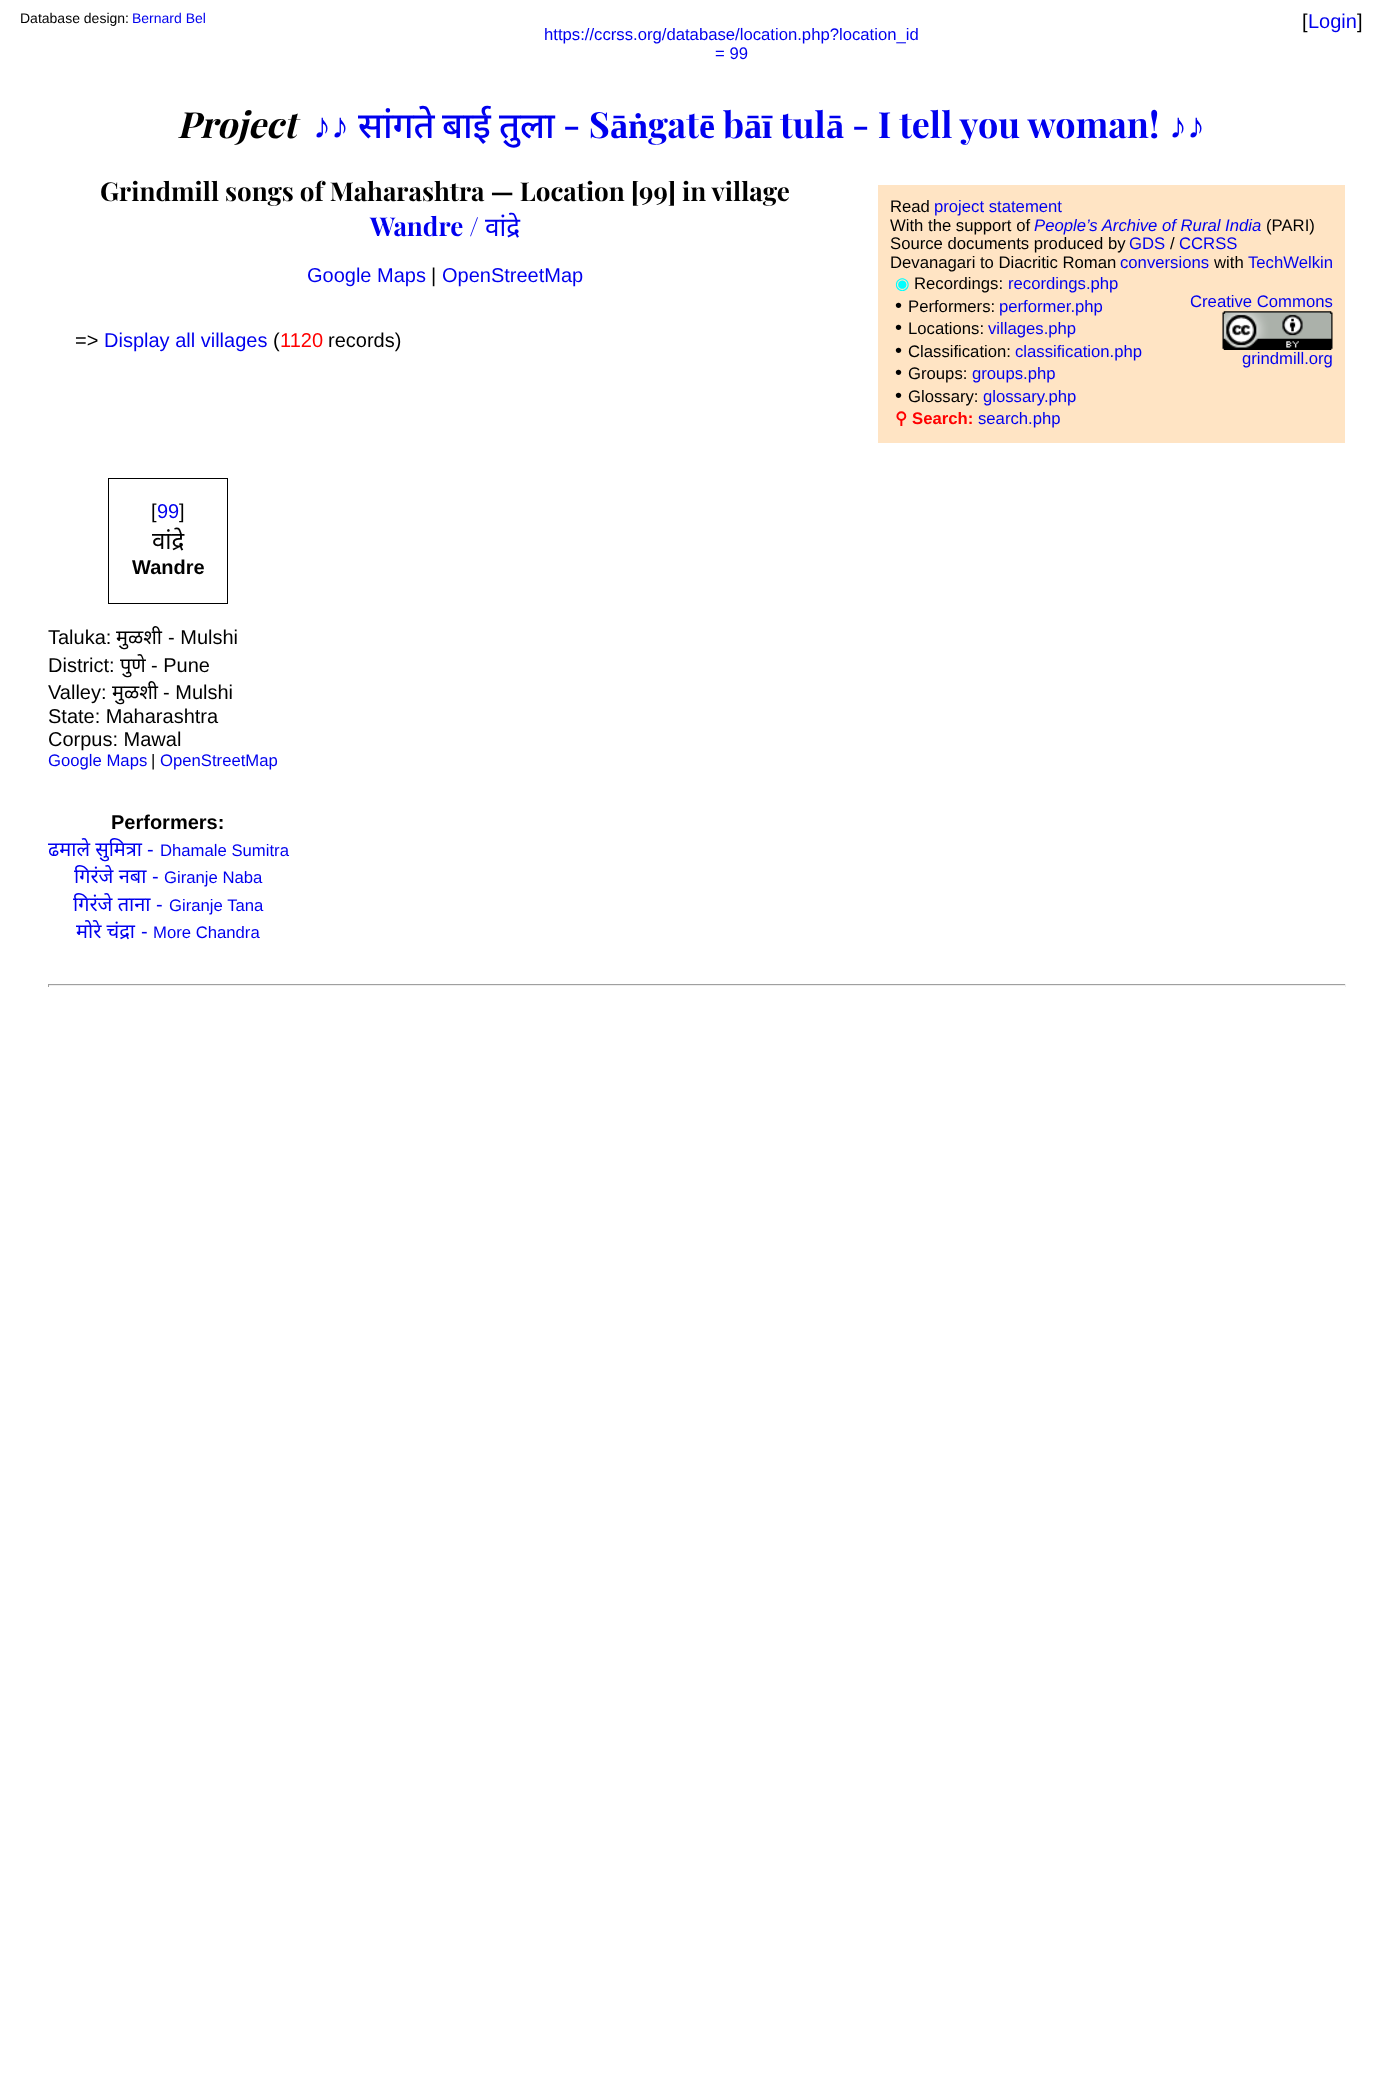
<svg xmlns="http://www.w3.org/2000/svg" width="1382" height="2082">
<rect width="100%" height="100%" fill="#fff"/>
<text x="20" y="23" style="font-family:Liberation Sans;font-size:14px;fill:#000">Database design:</text>
<text x="132" y="23" style="font-family:Liberation Sans;font-size:14px;fill:#00e">Bernard Bel</text>
<text x="1302" y="28" style="font-family:Liberation Sans;font-size:20px;fill:#000">[</text>
<text x="1308" y="28" style="font-family:Liberation Sans;font-size:20px;fill:#00e">Login</text>
<text x="1357" y="28" style="font-family:Liberation Sans;font-size:20px;fill:#000">]</text>
<text x="544" y="40" style="font-family:Liberation Sans;font-size:16.7px;fill:#00e">https://ccrss.org/database/location.php?location_id</text>
<text x="715" y="59" style="font-family:Liberation Sans;font-size:16.7px;fill:#00e">= 99</text>
<text x="177" y="138" style="font-family:Playfair Display;font-size:36px;font-weight:bold;font-style:italic;fill:#000">Project</text>
<text x="313" y="138" style="font-family:Liberation Serif;font-size:36px;font-weight:bold;fill:#00e">♪♪</text>
<text x="358" y="138" style="font-family:Noto Sans;font-size:36px;font-weight:500;fill:#00e">सांगते</text>
<text x="442" y="138" style="font-family:Noto Sans;font-size:36px;font-weight:500;fill:#00e">बाई</text>
<text x="499" y="138" style="font-family:Noto Sans;font-size:36px;font-weight:500;fill:#00e">तुला</text>
<text x="563" y="138" style="font-family:Playfair Display;font-size:36px;font-weight:bold;fill:#00e">- S</text>
<text x="610" y="138" style="font-family:Liberation Serif;font-size:36px;font-weight:bold;fill:#00e">āṅ</text>
<text x="648" y="138" style="font-family:Playfair Display;font-size:36px;font-weight:bold;fill:#00e">gat</text>
<text x="699" y="138" style="font-family:Liberation Serif;font-size:36px;font-weight:bold;fill:#00e">ē</text>
<text x="723" y="138" style="font-family:Playfair Display;font-size:36px;font-weight:bold;fill:#00e">b</text>
<text x="744" y="138" style="font-family:Liberation Serif;font-size:36px;font-weight:bold;fill:#00e">āī</text>
<text x="780" y="138" style="font-family:Playfair Display;font-size:36px;font-weight:bold;fill:#00e">tul</text>
<text x="826" y="138" style="font-family:Liberation Serif;font-size:36px;font-weight:bold;fill:#00e">ā</text>
<text x="852" y="138" style="font-family:Playfair Display;font-size:36px;font-weight:bold;fill:#00e">- I tell you woman!</text>
<text x="1169" y="138" style="font-family:Liberation Serif;font-size:36px;font-weight:bold;fill:#00e">♪♪</text>
<text x="100" y="201" style="font-family:Playfair Display;font-size:26px;font-weight:bold;fill:#000">Grindmill songs of Maharashtra — Location [99] in village</text>
<text x="370" y="236" style="font-family:Playfair Display;font-size:26px;font-weight:bold;fill:#00e">Wandre /</text>
<text x="485" y="236" style="font-family:Noto Sans;font-size:26px;fill:#00e">वांद्रे</text>
<rect x="878" y="185" width="467" height="258" fill="#ffe4c4"/>
<text x="890" y="212" style="font-family:Liberation Sans;font-size:16.7px;fill:#000">Read</text>
<text x="934" y="212" style="font-family:Liberation Sans;font-size:16.7px;fill:#00e">project statement</text>
<text x="890" y="231" style="font-family:Liberation Sans;font-size:16.7px;fill:#000">With the support of</text>
<text x="1034" y="231" style="font-family:Liberation Sans;font-size:16.7px;font-style:italic;fill:#00e">People’s Archive of Rural India</text>
<text x="1266" y="231" style="font-family:Liberation Sans;font-size:16.7px;fill:#000">(PARI)</text>
<text x="890" y="249" style="font-family:Liberation Sans;font-size:16.7px;fill:#000">Source documents produced by</text>
<text x="1129" y="249" style="font-family:Liberation Sans;font-size:16.7px;fill:#00e">GDS</text>
<text x="1170" y="249" style="font-family:Liberation Sans;font-size:16.7px;fill:#000">/</text>
<text x="1179" y="249" style="font-family:Liberation Sans;font-size:16.7px;fill:#00e">CCRSS</text>
<text x="890" y="268" style="font-family:Liberation Sans;font-size:16.7px;fill:#000">Devanagari to Diacritic Roman</text>
<text x="1120" y="268" style="font-family:Liberation Sans;font-size:16.7px;fill:#00e">conversions</text>
<text x="1214" y="268" style="font-family:Liberation Sans;font-size:16.7px;fill:#000">with</text>
<text x="1248" y="268" style="font-family:Liberation Sans;font-size:16.7px;fill:#00e">TechWelkin</text>
<text x="895" y="289" style="font-family:DejaVu Sans;font-size:16.7px;fill:#0ff">◉</text>
<text x="914" y="289" style="font-family:Liberation Sans;font-size:16.7px;fill:#000">Recordings:</text>
<text x="1008" y="289" style="font-family:Liberation Sans;font-size:16.7px;fill:#00e">recordings.php</text>
<text x="895" y="312" style="font-family:Liberation Sans;font-size:20px;fill:#000">•</text>
<text x="908" y="312" style="font-family:Liberation Sans;font-size:16.7px;fill:#000">Performers:</text>
<text x="999" y="312" style="font-family:Liberation Sans;font-size:16.7px;fill:#00e">performer.php</text>
<text x="1190" y="307" style="font-family:Liberation Sans;font-size:16.7px;fill:#00e">Creative Commons</text>
<image x="1222" y="311" width="111" height="39" href="media/1.png"/>
<text x="1242" y="364" style="font-family:Liberation Sans;font-size:16.7px;fill:#00e">grindmill.org</text>
<text x="895" y="334" style="font-family:Liberation Sans;font-size:20px;fill:#000">•</text>
<text x="908" y="334" style="font-family:Liberation Sans;font-size:16.7px;fill:#000">Locations:</text>
<text x="988" y="334" style="font-family:Liberation Sans;font-size:16.7px;fill:#00e">villages.php</text>
<text x="895" y="357" style="font-family:Liberation Sans;font-size:20px;fill:#000">•</text>
<text x="908" y="357" style="font-family:Liberation Sans;font-size:16.7px;fill:#000">Classification:</text>
<text x="1015" y="357" style="font-family:Liberation Sans;font-size:16.7px;fill:#00e">classification.php</text>
<text x="895" y="379" style="font-family:Liberation Sans;font-size:20px;fill:#000">•</text>
<text x="908" y="379" style="font-family:Liberation Sans;font-size:16.7px;fill:#000">Groups:</text>
<text x="972" y="379" style="font-family:Liberation Sans;font-size:16.7px;fill:#00e">groups.php</text>
<text x="895" y="402" style="font-family:Liberation Sans;font-size:20px;fill:#000">•</text>
<text x="908" y="402" style="font-family:Liberation Sans;font-size:16.7px;fill:#000">Glossary:</text>
<text x="983" y="402" style="font-family:Liberation Sans;font-size:16.7px;fill:#00e">glossary.php</text>
<text x="895" y="424" style="font-family:DejaVu Sans;font-size:16.7px;font-weight:bold;fill:#f00">⚲</text>
<text x="912" y="424" style="font-family:Liberation Sans;font-size:16.7px;font-weight:bold;fill:#f00">Search:</text>
<text x="978" y="424" style="font-family:Liberation Sans;font-size:16.7px;fill:#00e">search.php</text>
<text x="307" y="282" style="font-family:Liberation Sans;font-size:20px;fill:#00e">Google Maps</text>
<text x="431" y="282" style="font-family:Liberation Sans;font-size:20px;fill:#000">|</text>
<text x="442" y="282" style="font-family:Liberation Sans;font-size:20px;fill:#00e">OpenStreetMap</text>
<text x="75" y="347" style="font-family:Liberation Sans;font-size:20px;fill:#000">=&gt;</text>
<text x="104" y="347" style="font-family:Liberation Sans;font-size:20px;fill:#00e">Display all villages</text>
<text x="273" y="347" style="font-family:Liberation Sans;font-size:20px;fill:#000">(</text>
<text x="280" y="347" style="font-family:Liberation Sans;font-size:20px;fill:#f00">1120</text>
<text x="328" y="347" style="font-family:Liberation Sans;font-size:20px;fill:#000">records)</text>
<rect x="108.5" y="478.5" width="119" height="125" fill="none" stroke="#000"/>
<text x="151" y="518" style="font-family:Liberation Sans;font-size:20px;fill:#000">[</text>
<text x="157" y="518" style="font-family:Liberation Sans;font-size:20px;fill:#00e">99</text>
<text x="179" y="518" style="font-family:Liberation Sans;font-size:20px;fill:#000">]</text>
<text x="152" y="549" style="font-family:Noto Sans;font-size:24px;fill:#000">वांद्रे</text>
<text x="132" y="574" style="font-family:Liberation Sans;font-size:20px;font-weight:bold;fill:#000">Wandre</text>
<text x="48" y="644" style="font-family:Liberation Sans;font-size:20px;fill:#000">Taluka:</text>
<text x="116" y="644" style="font-family:Noto Sans;font-size:20px;fill:#000">मुळशी</text>
<text x="168" y="644" style="font-family:Liberation Sans;font-size:20px;fill:#000">- Mulshi</text>
<text x="48" y="672" style="font-family:Liberation Sans;font-size:20px;fill:#000">District:</text>
<text x="120" y="672" style="font-family:Noto Sans;font-size:20px;fill:#000">पुणे</text>
<text x="151" y="672" style="font-family:Liberation Sans;font-size:20px;fill:#000">- Pune</text>
<text x="48" y="699" style="font-family:Liberation Sans;font-size:20px;fill:#000">Valley:</text>
<text x="112" y="699" style="font-family:Noto Sans;font-size:20px;fill:#000">मुळशी</text>
<text x="163" y="699" style="font-family:Liberation Sans;font-size:20px;fill:#000">- Mulshi</text>
<text x="48" y="723" style="font-family:Liberation Sans;font-size:20px;fill:#000">State: Maharashtra</text>
<text x="48" y="746" style="font-family:Liberation Sans;font-size:20px;fill:#000">Corpus: Mawal</text>
<text x="48" y="766" style="font-family:Liberation Sans;font-size:16.7px;fill:#00e">Google Maps</text>
<text x="151" y="766" style="font-family:Liberation Sans;font-size:16.7px;fill:#000">|</text>
<text x="160" y="766" style="font-family:Liberation Sans;font-size:16.7px;fill:#00e">OpenStreetMap</text>
<text x="111" y="829" style="font-family:Liberation Sans;font-size:20px;font-weight:bold;fill:#000">Performers:</text>
<text x="48" y="856" style="font-family:Noto Sans;font-size:20px;fill:#00e">ढमाले सुमित्रा</text>
<text x="147" y="856" style="font-family:Liberation Sans;font-size:20px;fill:#00e">-</text>
<text x="160" y="856" style="font-family:Liberation Sans;font-size:16.7px;fill:#00e">Dhamale Sumitra</text>
<text x="74" y="883" style="font-family:Noto Sans;font-size:20px;fill:#00e">गिरंजे नबा</text>
<text x="152" y="883" style="font-family:Liberation Sans;font-size:20px;fill:#00e">-</text>
<text x="164" y="883" style="font-family:Liberation Sans;font-size:16.7px;fill:#00e">Giranje Naba</text>
<text x="73" y="911" style="font-family:Noto Sans;font-size:20px;fill:#00e">गिरंजे ताना</text>
<text x="156" y="911" style="font-family:Liberation Sans;font-size:20px;fill:#00e">-</text>
<text x="169" y="911" style="font-family:Liberation Sans;font-size:16.7px;fill:#00e">Giranje Tana</text>
<text x="76" y="938" style="font-family:Noto Sans;font-size:20px;fill:#00e">मोरे चंद्रा</text>
<text x="141" y="938" style="font-family:Liberation Sans;font-size:20px;fill:#00e">-</text>
<text x="153" y="938" style="font-family:Liberation Sans;font-size:16.7px;fill:#00e">More Chandra</text>
<rect x="48" y="984" width="1298" height="1" fill="#9f9f9f"/>
<rect x="1345" y="984" width="1" height="3" fill="#eee"/>
<rect x="48" y="985" width="1298" height="1" fill="#eee"/>
<rect x="48" y="984" width="1" height="3" fill="#9f9f9f"/>
</svg>
